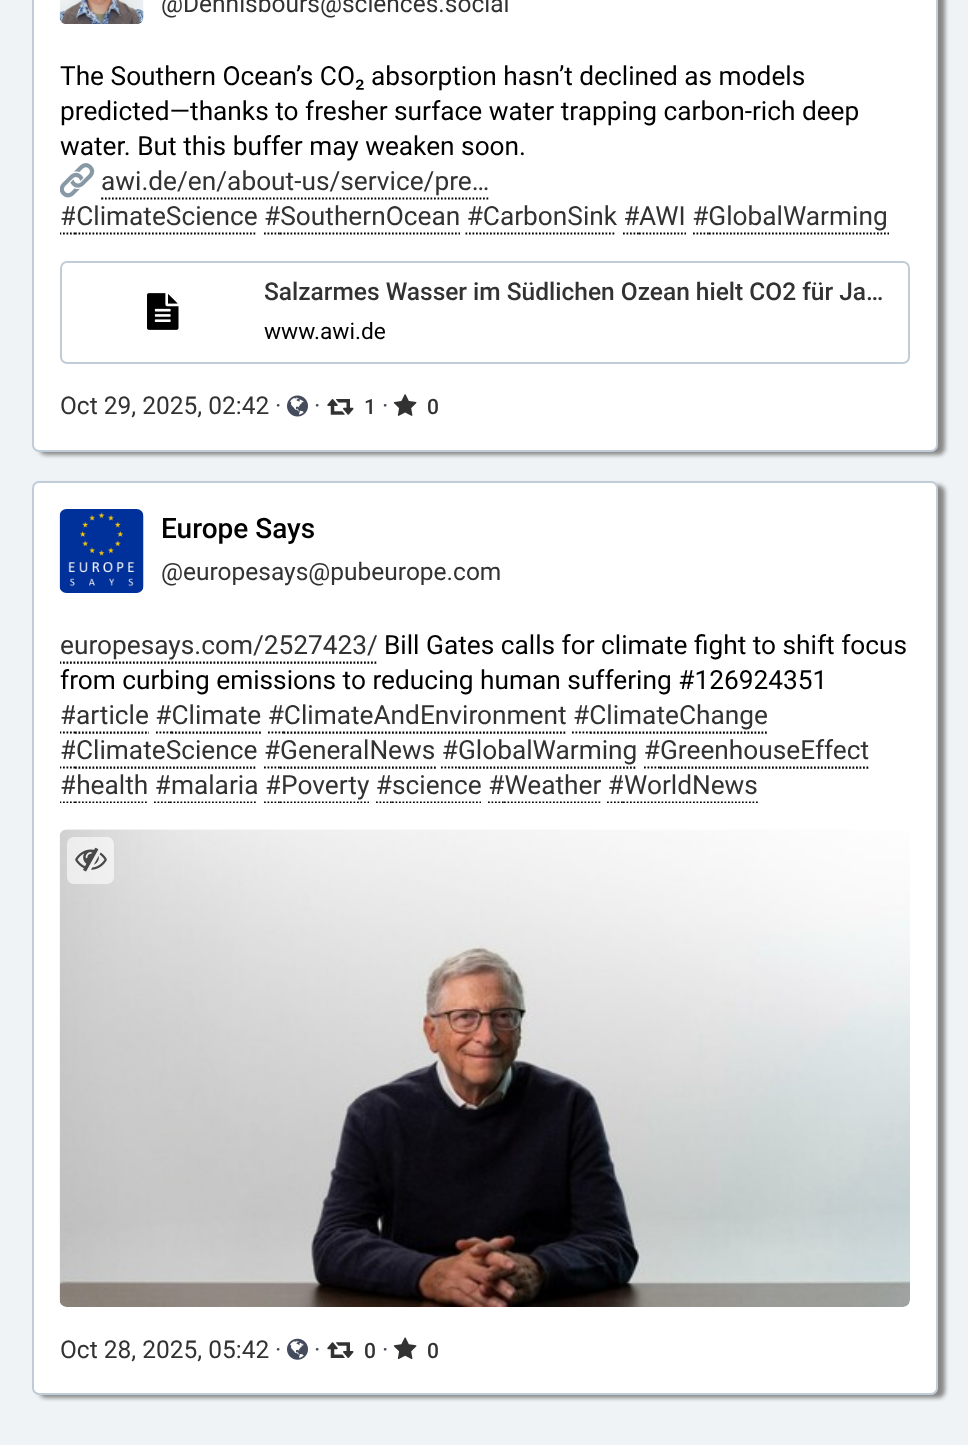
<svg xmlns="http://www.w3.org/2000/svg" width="968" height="1445">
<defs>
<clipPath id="clip1"><rect x="60" y="51" width="850" height="184"/></clipPath>
<clipPath id="clip2"><rect x="60" y="620" width="850" height="183"/></clipPath>
</defs>
<rect width="100%" height="100%" fill="#eff3f5"/>
<rect x="39" y="-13" width="906" height="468" rx="7" fill="#888" filter="blur(2px)"/>
<rect x="33" y="-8" width="904" height="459" rx="6" fill="#fff" stroke="#c0cdd9" stroke-width="2"/>
<image x="59" y="0" width="85" height="24" href="media/1.png"/>
<text x="161" y="12" style="font-family:Roboto;font-size:24.5px;fill:#323232">@Dennisbours@sciences.social</text>
<text x="60" y="85" style="font-family:Roboto;font-size:26.25px;fill:#000">The Southern Ocean’s CO₂ absorption hasn’t declined as models</text>
<text x="60" y="120" style="font-family:Roboto;font-size:26.25px;fill:#000">predicted—thanks to fresher surface water trapping carbon-rich deep</text>
<text x="60" y="155" style="font-family:Roboto;font-size:26.25px;fill:#000">water. But this buffer may weaken soon.</text>
<image x="60" y="163" width="35" height="35" href="media/2.png"/>
<text x="101" y="190" style="font-family:Roboto;font-size:26.25px;fill:#323232">awi.de/en/about-us/service/pre…</text>
<path d="M101.5 198.5h371" fill="none" stroke="#000" stroke-width="1.8" stroke-dasharray="1.75 1.75"/>
<rect x="102" y="197" width="369" height="3" fill="#fff"/>
<path d="M101.5 198.5h371" fill="none" stroke="#000" stroke-width="1.8" stroke-dasharray="1.75 1.75"/>
<path d="M472.5 198.5h17.5" fill="none" stroke="#000" stroke-width="1.8" stroke-dasharray="1.75 1.75"/>
<text x="60" y="225" style="font-family:Roboto;font-size:26.25px;fill:#323232">#ClimateScience #SouthernOcean #CarbonSink #</text>
<g clip-path="url(#clip1)">
<path d="M59.5 233.5h15.5" fill="none" stroke="#000" stroke-width="1.8" stroke-dasharray="1.75 1.75"/>
</g>
<rect x="75" y="211" width="1" height="3" fill="#fff"/>
<path d="M75 233.5h182" fill="none" stroke="#000" stroke-width="1.8" stroke-dasharray="1.75 1.75"/>
<rect x="639" y="211" width="1" height="3" fill="#fff"/>
<text x="639" y="225" style="font-family:Roboto;font-size:26.25px;fill:#323232">AWI #GlobalWarming</text>
<path d="M623 233.5h16" fill="none" stroke="#000" stroke-width="1.8" stroke-dasharray="1.75 1.75"/>
<path d="M639 233.5h47" fill="none" stroke="#000" stroke-width="1.8" stroke-dasharray="1.75 1.75"/>
<path d="M264 233.5h16" fill="none" stroke="#000" stroke-width="1.8" stroke-dasharray="1.75 1.75"/>
<path d="M280 233.5h180" fill="none" stroke="#000" stroke-width="1.8" stroke-dasharray="1.75 1.75"/>
<path d="M465.5 233.5h17.5" fill="none" stroke="#000" stroke-width="1.8" stroke-dasharray="1.75 1.75"/>
<path d="M483 233.5h133" fill="none" stroke="#000" stroke-width="1.8" stroke-dasharray="1.75 1.75"/>
<path d="M693 233.5h16" fill="none" stroke="#000" stroke-width="1.8" stroke-dasharray="1.75 1.75"/>
<path d="M709 233.5h180" fill="none" stroke="#000" stroke-width="1.8" stroke-dasharray="1.75 1.75"/>
<rect x="61" y="262" width="848" height="101" rx="6" fill="none" stroke="#c0cdd9" stroke-width="2"/>
<image x="147" y="293" width="32" height="37" href="media/3.png"/>
<text x="264" y="300" style="font-family:Roboto;font-size:24.5px;font-weight:500;fill:#323232">Salzarmes Wasser im Südlichen Ozean hielt CO2 für Ja…</text>
<text x="264" y="339" style="font-family:Roboto;font-size:22.75px;fill:#000">www.awi.de</text>
<text x="60" y="414" style="font-family:Roboto;font-size:24.5px;fill:#323232">Oct 29, 2025, 02:42</text>
<text x="275" y="414" style="font-family:Roboto;font-size:24.5px;fill:#444b5d">·</text>
<image x="287" y="395" width="21" height="22" href="media/4.png"/>
<text x="314" y="414" style="font-family:Roboto;font-size:24.5px;fill:#444b5d">·</text>
<image x="327" y="399" width="27" height="16" href="media/5.png"/>
<text x="364" y="414" style="font-family:Roboto;font-size:21px;font-weight:500;fill:#323232">1</text>
<text x="382" y="414" style="font-family:Roboto;font-size:24.5px;fill:#444b5d">·</text>
<image x="393" y="394" width="24" height="22" href="media/6.png"/>
<text x="427" y="414" style="font-family:Roboto;font-size:21px;font-weight:500;fill:#323232">0</text>
<rect x="39" y="485" width="906" height="913" rx="7" fill="#888" filter="blur(2px)"/>
<rect x="33" y="482" width="904" height="912" rx="6" fill="#fff" stroke="#c0cdd9" stroke-width="2"/>
<image x="59" y="509" width="85" height="84" href="media/7.png"/>
<text x="161" y="538" style="font-family:Roboto;font-size:28px;font-weight:500;fill:#000">Europe Says</text>
<text x="161" y="580" style="font-family:Roboto;font-size:24.5px;fill:#323232">@europesays@pubeurope.com</text>
<text x="60" y="654" style="font-family:Roboto;font-size:26.25px;fill:#323232">europesays.com/2527423/</text>
<g clip-path="url(#clip2)">
<path d="M59.5 662.5h318.5" fill="none" stroke="#000" stroke-width="1.8" stroke-dasharray="1.75 1.75"/>
</g>
<rect x="60" y="661" width="317" height="2" fill="#fff"/>
<g clip-path="url(#clip2)">
<path d="M59.5 662.5h318.5" fill="none" stroke="#000" stroke-width="1.8" stroke-dasharray="1.75 1.75"/>
</g>
<text x="384" y="654" style="font-family:Roboto;font-size:26.25px;fill:#000">Bill Gates calls for climate fight to shift focus</text>
<text x="60" y="689" style="font-family:Roboto;font-size:26.25px;fill:#000">from curbing emissions to reducing human suffering #126924351</text>
<text x="60" y="724" style="font-family:Roboto;font-size:26.25px;fill:#323232">#</text>
<path d="M75 732.5h74" fill="none" stroke="#000" stroke-width="1.8" stroke-dasharray="1.75 1.75"/>
<rect x="75" y="710" width="74" height="23" fill="#fff"/>
<text x="76" y="724" style="font-family:Roboto;font-size:26.25px;fill:#323232">article #Climate #ClimateAndEnvironment #ClimateChange</text>
<g clip-path="url(#clip2)">
<path d="M59.5 732.5h15.5" fill="none" stroke="#000" stroke-width="1.8" stroke-dasharray="1.75 1.75"/>
</g>
<path d="M75 732.5h74" fill="none" stroke="#000" stroke-width="1.8" stroke-dasharray="1.75 1.75"/>
<path d="M156 732.5h15.5" fill="none" stroke="#000" stroke-width="1.8" stroke-dasharray="1.75 1.75"/>
<path d="M171.5 732.5h89.5" fill="none" stroke="#000" stroke-width="1.8" stroke-dasharray="1.75 1.75"/>
<rect x="172" y="731" width="89" height="2" fill="#fff"/>
<path d="M171.5 732.5h89.5" fill="none" stroke="#000" stroke-width="1.8" stroke-dasharray="1.75 1.75"/>
<path d="M268 732.5h15.5" fill="none" stroke="#000" stroke-width="1.8" stroke-dasharray="1.75 1.75"/>
<path d="M283.5 732.5h283.5" fill="none" stroke="#000" stroke-width="1.8" stroke-dasharray="1.75 1.75"/>
<rect x="284" y="731" width="282" height="2" fill="#fff"/>
<path d="M283.5 732.5h283.5" fill="none" stroke="#000" stroke-width="1.8" stroke-dasharray="1.75 1.75"/>
<path d="M572 732.5h18" fill="none" stroke="#000" stroke-width="1.8" stroke-dasharray="1.75 1.75"/>
<path d="M590 732.5h178" fill="none" stroke="#000" stroke-width="1.8" stroke-dasharray="1.75 1.75"/>
<rect x="590" y="731" width="177" height="2" fill="#fff"/>
<path d="M590 732.5h178" fill="none" stroke="#000" stroke-width="1.8" stroke-dasharray="1.75 1.75"/>
<text x="60" y="759" style="font-family:Roboto;font-size:26.25px;fill:#323232">#</text>
<path d="M75 767.5h182" fill="none" stroke="#000" stroke-width="1.8" stroke-dasharray="1.75 1.75"/>
<rect x="75" y="745" width="181" height="23" fill="#fff"/>
<text x="76" y="759" style="font-family:Roboto;font-size:26.25px;fill:#323232">ClimateScience #GeneralNews #GlobalWarming #GreenhouseEffect</text>
<g clip-path="url(#clip2)">
<path d="M59.5 767.5h15.5" fill="none" stroke="#000" stroke-width="1.8" stroke-dasharray="1.75 1.75"/>
</g>
<path d="M75 767.5h182" fill="none" stroke="#000" stroke-width="1.8" stroke-dasharray="1.75 1.75"/>
<path d="M264 767.5h16" fill="none" stroke="#000" stroke-width="1.8" stroke-dasharray="1.75 1.75"/>
<path d="M280 767.5h156" fill="none" stroke="#000" stroke-width="1.8" stroke-dasharray="1.75 1.75"/>
<rect x="280" y="766" width="156" height="2" fill="#fff"/>
<path d="M280 767.5h156" fill="none" stroke="#000" stroke-width="1.8" stroke-dasharray="1.75 1.75"/>
<path d="M441 767.5h17.5" fill="none" stroke="#000" stroke-width="1.8" stroke-dasharray="1.75 1.75"/>
<path d="M458.5 767.5h178.5" fill="none" stroke="#000" stroke-width="1.8" stroke-dasharray="1.75 1.75"/>
<rect x="459" y="766" width="177" height="2" fill="#fff"/>
<path d="M458.5 767.5h178.5" fill="none" stroke="#000" stroke-width="1.8" stroke-dasharray="1.75 1.75"/>
<path d="M644 767.5h16" fill="none" stroke="#000" stroke-width="1.8" stroke-dasharray="1.75 1.75"/>
<path d="M660 767.5h210" fill="none" stroke="#000" stroke-width="1.8" stroke-dasharray="1.75 1.75"/>
<rect x="660" y="766" width="209" height="2" fill="#fff"/>
<path d="M660 767.5h210" fill="none" stroke="#000" stroke-width="1.8" stroke-dasharray="1.75 1.75"/>
<text x="60" y="794" style="font-family:Roboto;font-size:26.25px;fill:#323232">#health #malaria #Poverty #science #Weather #WorldNews</text>
<g clip-path="url(#clip2)">
<path d="M59.5 802.5h15.5" fill="none" stroke="#000" stroke-width="1.8" stroke-dasharray="1.75 1.75"/>
</g>
<rect x="75" y="780" width="1" height="3" fill="#fff"/>
<g clip-path="url(#clip2)">
<path d="M75 802.5h72" fill="none" stroke="#000" stroke-width="1.8" stroke-dasharray="1.75 1.75"/>
</g>
<rect x="170" y="780" width="1" height="3" fill="#fff"/>
<rect x="280" y="780" width="1" height="3" fill="#fff"/>
<rect x="623" y="780" width="1" height="3" fill="#fff"/>
<g clip-path="url(#clip2)">
<path d="M154 802.5h16" fill="none" stroke="#000" stroke-width="1.8" stroke-dasharray="1.75 1.75"/>
<path d="M170 802.5h87" fill="none" stroke="#000" stroke-width="1.8" stroke-dasharray="1.75 1.75"/>
<path d="M264 802.5h16" fill="none" stroke="#000" stroke-width="1.8" stroke-dasharray="1.75 1.75"/>
<path d="M280 802.5h89" fill="none" stroke="#000" stroke-width="1.8" stroke-dasharray="1.75 1.75"/>
<path d="M376 802.5h16" fill="none" stroke="#000" stroke-width="1.8" stroke-dasharray="1.75 1.75"/>
<path d="M392 802.5h89" fill="none" stroke="#000" stroke-width="1.8" stroke-dasharray="1.75 1.75"/>
<path d="M488 802.5h16" fill="none" stroke="#000" stroke-width="1.8" stroke-dasharray="1.75 1.75"/>
<path d="M504 802.5h98" fill="none" stroke="#000" stroke-width="1.8" stroke-dasharray="1.75 1.75"/>
<path d="M607 802.5h16" fill="none" stroke="#000" stroke-width="1.8" stroke-dasharray="1.75 1.75"/>
<path d="M623 802.5h135" fill="none" stroke="#000" stroke-width="1.8" stroke-dasharray="1.75 1.75"/>
</g>
<image x="59" y="829" width="851" height="478" href="media/8.png"/>
<rect x="67" y="837" width="47" height="47" rx="7" fill="#ffffff99"/>
<image x="75" y="847" width="32" height="25" href="media/9.png"/>
<text x="60" y="1358" style="font-family:Roboto;font-size:24.5px;fill:#323232">Oct 28, 2025, 05:42</text>
<text x="275" y="1358" style="font-family:Roboto;font-size:24.5px;fill:#444b5d">·</text>
<image x="287" y="1338" width="21" height="22" href="media/10.png"/>
<text x="314" y="1358" style="font-family:Roboto;font-size:24.5px;fill:#444b5d">·</text>
<image x="327" y="1342" width="27" height="16" href="media/11.png"/>
<text x="364" y="1358" style="font-family:Roboto;font-size:21px;font-weight:500;fill:#323232">0</text>
<text x="382" y="1358" style="font-family:Roboto;font-size:24.5px;fill:#444b5d">·</text>
<image x="393" y="1337" width="24" height="23" href="media/12.png"/>
<text x="427" y="1358" style="font-family:Roboto;font-size:21px;font-weight:500;fill:#323232">0</text>
</svg>
